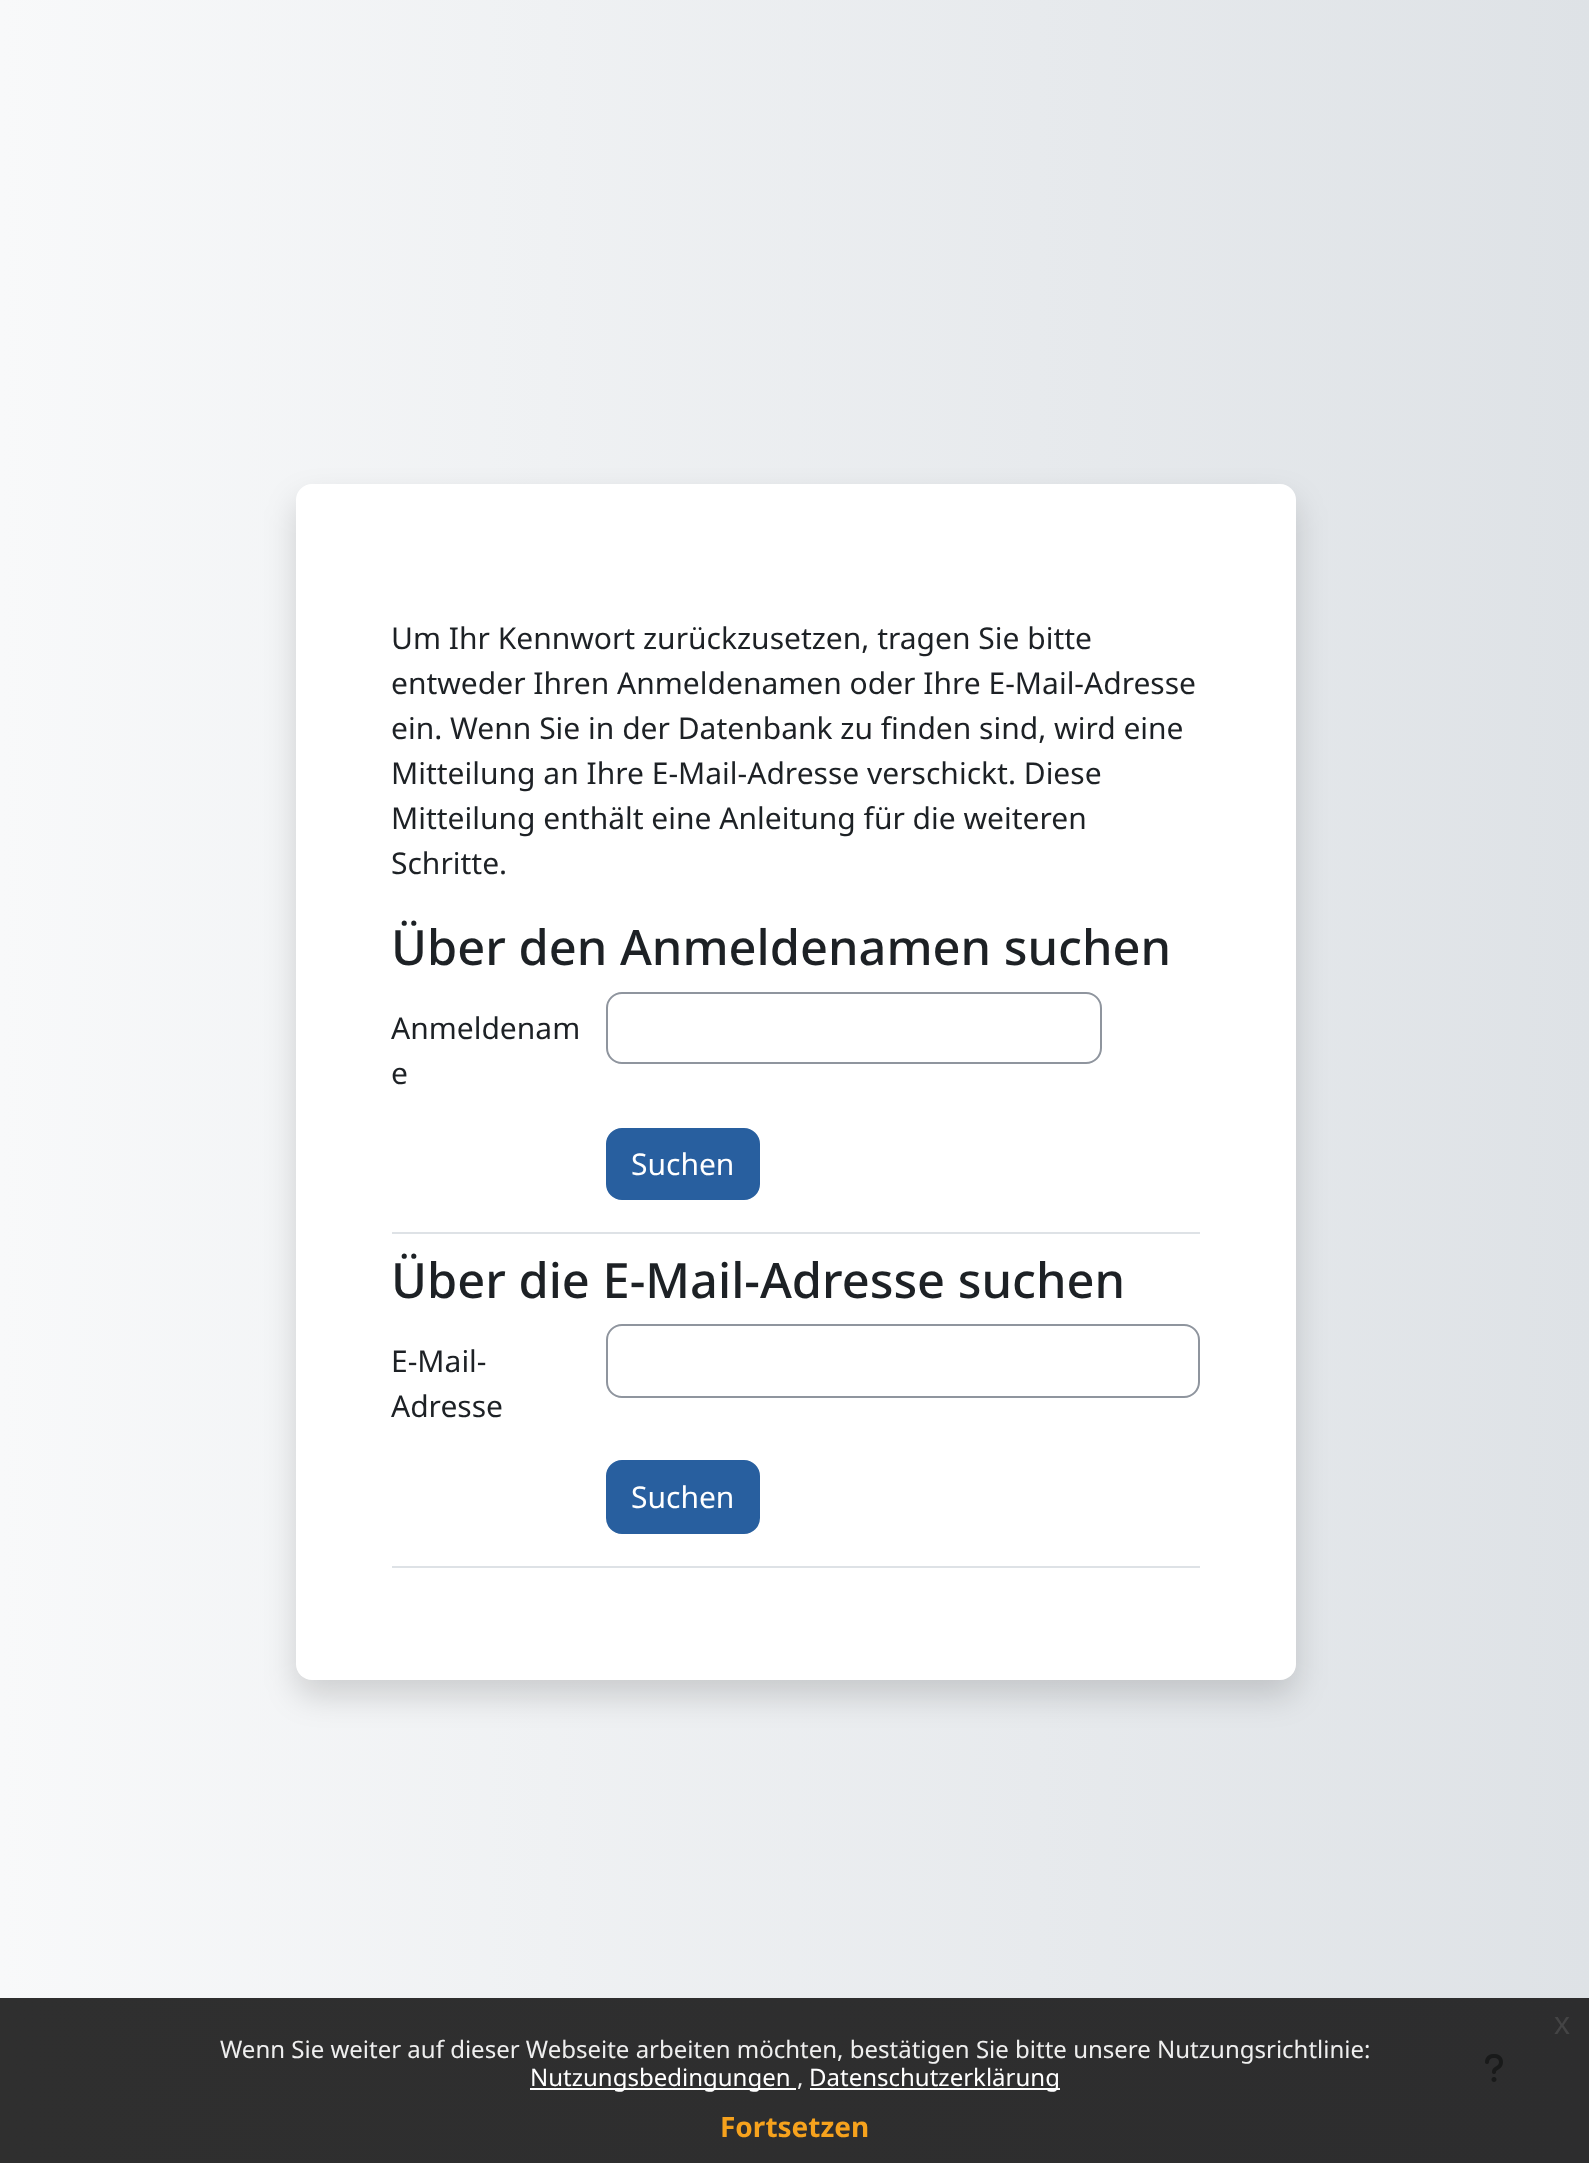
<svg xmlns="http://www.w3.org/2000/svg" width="1589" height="2163">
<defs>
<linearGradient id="g1" gradientUnits="userSpaceOnUse" x1="0" y1="1082" x2="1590" y2="1082"><stop offset="0" stop-color="#f8f9fa"/><stop offset="1" stop-color="#dee2e6"/></linearGradient>
<linearGradient id="g2" gradientUnits="userSpaceOnUse" x1="0" y1="1082" x2="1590" y2="1082"><stop offset="0" stop-color="#2f2f2f"/><stop offset="1" stop-color="#2d2d2e"/></linearGradient>
</defs>
<rect width="100%" height="100%" fill="#fff"/>
<rect width="1589" height="1998" fill="url(#g1)"/>
<rect y="1998" width="1589" height="165" fill="url(#g2)"/>
<rect x="296" y="500" width="1000" height="1196" rx="16" fill="#00000026" filter="blur(16px)"/>
<rect x="296" y="484" width="1000" height="1196" rx="16" fill="#fff"/>
<text x="391" y="649" style="font-family:Noto Sans;font-size:30px;fill:#1d2125">Um Ihr Kennwort zurückzusetzen, tragen Sie bitte</text>
<text x="391" y="694" style="font-family:Noto Sans;font-size:30px;fill:#1d2125">entweder Ihren Anmeldenamen oder Ihre E-Mail-Adresse</text>
<text x="391" y="739" style="font-family:Noto Sans;font-size:30px;fill:#1d2125">ein. Wenn Sie in der Datenbank zu finden sind, wird eine</text>
<text x="391" y="784" style="font-family:Noto Sans;font-size:30px;fill:#1d2125">Mitteilung an Ihre E-Mail-Adresse verschickt. Diese</text>
<text x="391" y="829" style="font-family:Noto Sans;font-size:30px;fill:#1d2125">Mitteilung enthält eine Anleitung für die weiteren</text>
<text x="391" y="874" style="font-family:Noto Sans;font-size:30px;fill:#1d2125">Schritte.</text>
<rect x="392" y="1232" width="808" height="2" fill="#dee2e6"/>
<text x="391" y="965" style="font-family:Noto Sans;font-size:48.75px;font-weight:500;fill:#1d2125">Über den Anmeldenamen suchen</text>
<text x="391" y="1039" style="font-family:Noto Sans;font-size:30px;fill:#1d2125">Anmeldenam</text>
<text x="391" y="1084" style="font-family:Noto Sans;font-size:30px;fill:#1d2125">e</text>
<rect x="607" y="993" width="494" height="70" rx="15" fill="none" stroke="#8f959e" stroke-width="2"/>
<rect x="607" y="1129" width="152" height="70" rx="15" fill="#285f9f" stroke="#285f9f" stroke-width="2"/>
<text x="631" y="1175" style="font-family:Noto Sans;font-size:30px;fill:#fff">Suchen</text>
<rect x="392" y="1566" width="808" height="2" fill="#dee2e6"/>
<text x="391" y="1298" style="font-family:Noto Sans;font-size:48.75px;font-weight:500;fill:#1d2125">Über die E-Mail-Adresse suchen</text>
<text x="391" y="1372" style="font-family:Noto Sans;font-size:30px;fill:#1d2125">E-Mail-</text>
<text x="391" y="1417" style="font-family:Noto Sans;font-size:30px;fill:#1d2125">Adresse</text>
<rect x="607" y="1325" width="592" height="72" rx="15" fill="none" stroke="#8f959e" stroke-width="2"/>
<rect x="607" y="1461" width="152" height="72" rx="15" fill="#285f9f" stroke="#285f9f" stroke-width="2"/>
<text x="631" y="1508" style="font-family:Noto Sans;font-size:30px;fill:#fff">Suchen</text>
<text x="1554" y="2034" style="font-family:Liberation Sans;font-size:32px;fill:#444445">x</text>
<text x="220" y="2058" style="font-family:Noto Sans;font-size:24px;fill:#efefef">Wenn Sie weiter auf dieser Webseite arbeiten möchten, bestätigen Sie bitte unsere Nutzungsrichtlinie:</text>
<rect x="530" y="2088" width="266" height="2" fill="#fff"/>
<text x="530" y="2086" style="font-family:Noto Sans;font-size:24px;fill:#fff">Nutzungsbedingungen</text>
<text x="797" y="2086" style="font-family:Noto Sans;font-size:24px;fill:#efefef">,</text>
<rect x="810" y="2088" width="250" height="2" fill="#fff"/>
<text x="809" y="2086" style="font-family:Noto Sans;font-size:24px;fill:#fff">Datenschutzerklärung</text>
<text x="720" y="2137" style="font-family:Noto Sans;font-size:28px;font-weight:bold;fill:#f6a21d">Fortsetzen</text>
<image x="1485" y="2054" width="18" height="28" href="media/1.png"/>
</svg>
